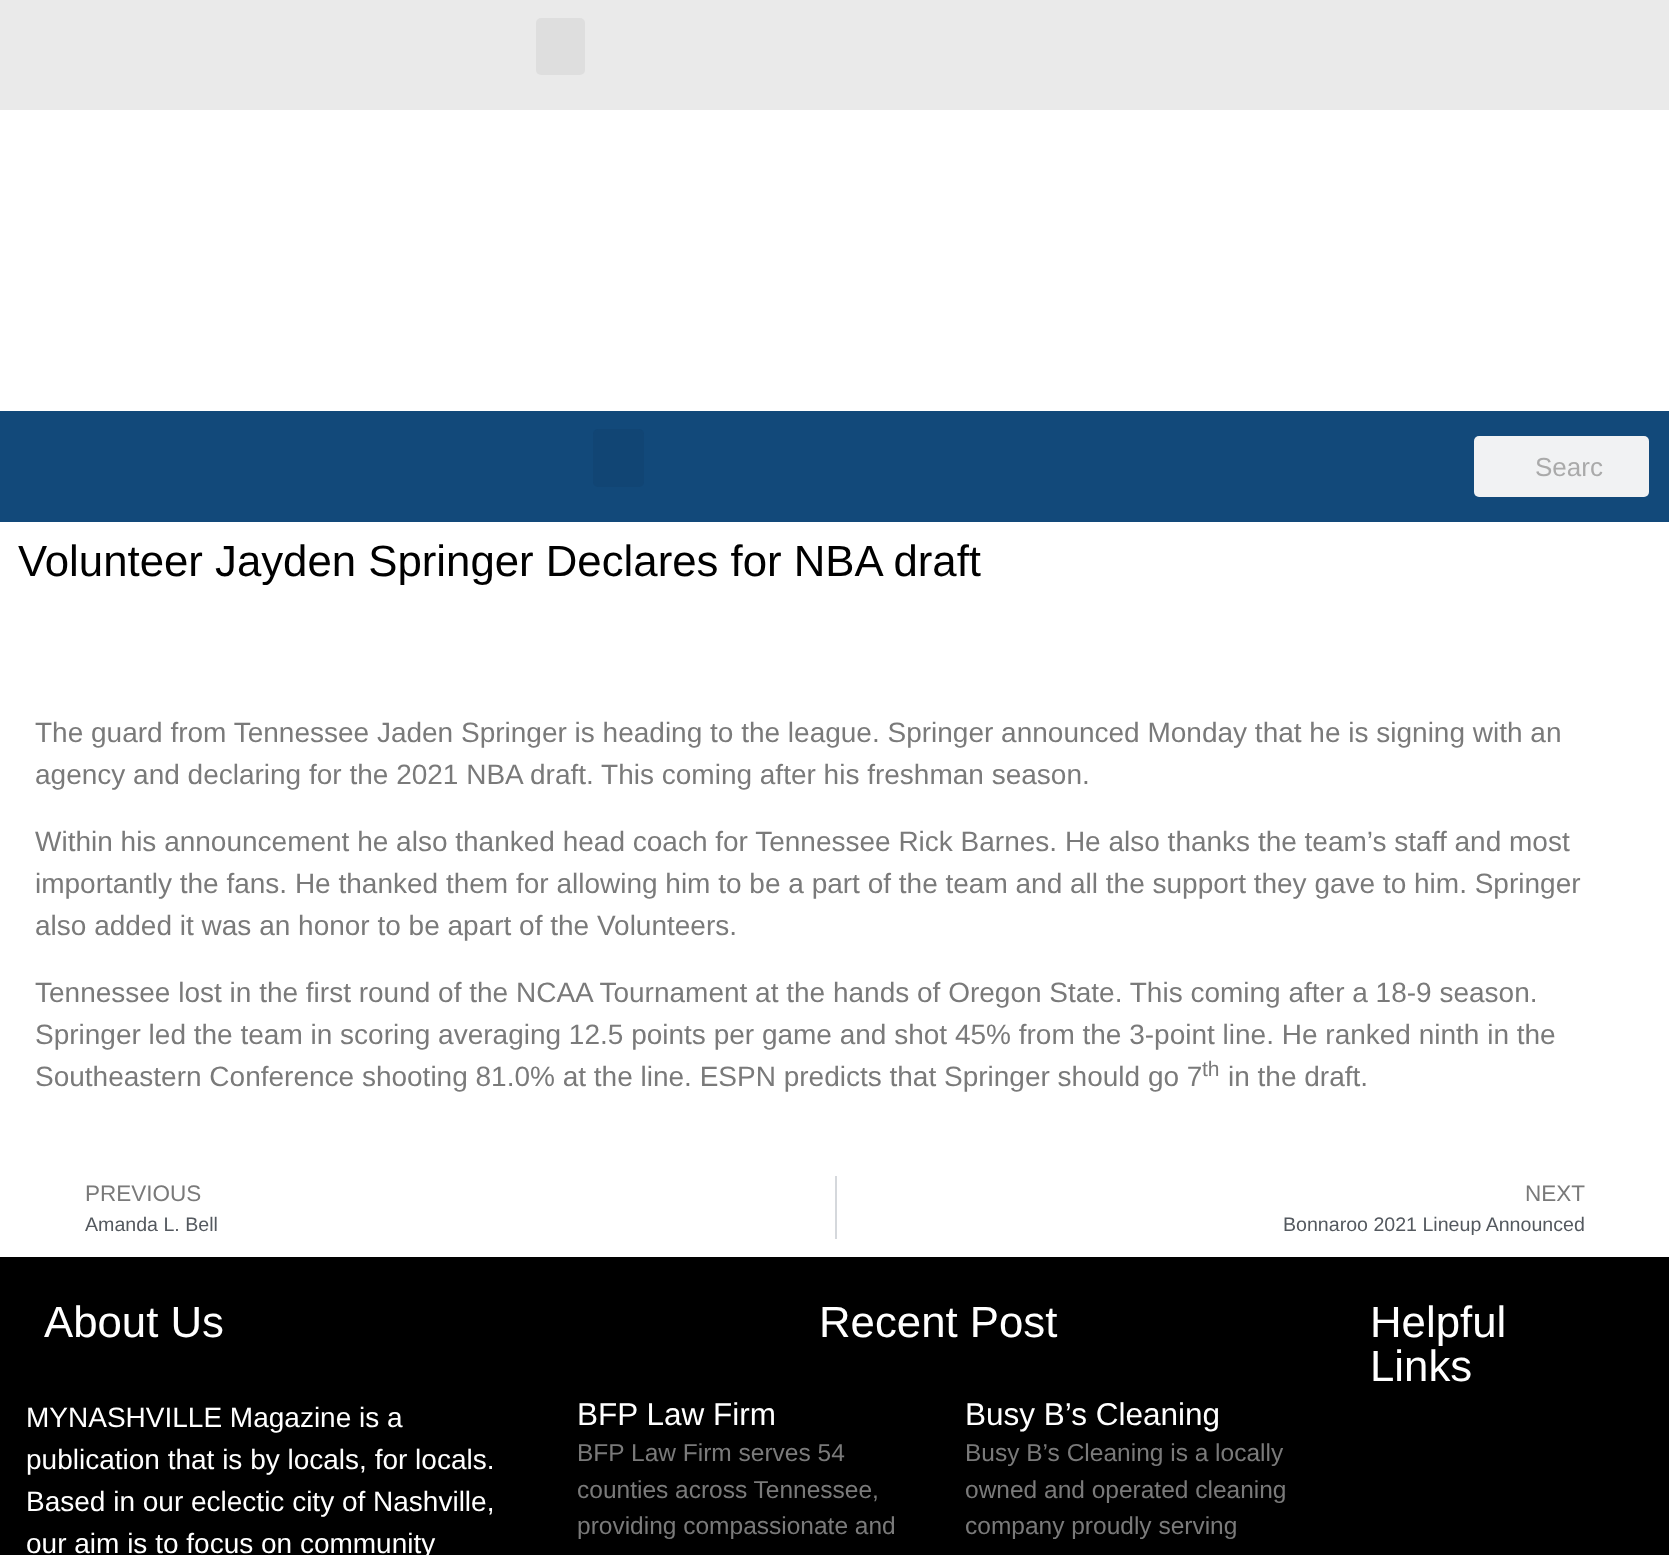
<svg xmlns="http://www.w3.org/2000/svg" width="1669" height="1555">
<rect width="100%" height="100%" fill="#fff"/>
<rect width="1669" height="110" fill="#eaeaea"/>
<rect x="536" y="18" width="49" height="57" rx="5" fill="#dedede"/>
<rect y="411" width="1669" height="111" fill="#12497a"/>
<rect x="593" y="429" width="51" height="58" rx="5" fill="#114574"/>
<rect x="1474" y="436" width="175" height="61" rx="5" fill="#f1f2f3"/>
<text x="1535" y="476" style="font-family:Liberation Sans;font-size:26px;fill:#aaa">Searc</text>
<text x="18" y="576" style="font-family:Liberation Sans;font-size:43.75px;fill:#000">Volunteer Jayden Springer Declares for NBA draft</text>
<text x="35" y="742" style="font-family:Liberation Sans;font-size:28px;fill:#7a7a7a">The guard from Tennessee Jaden Springer is heading to the league. Springer announced Monday that he is signing with an</text>
<text x="35" y="784" style="font-family:Liberation Sans;font-size:28px;fill:#7a7a7a">agency and declaring for the 2021 NBA draft. This coming after his freshman season.</text>
<text x="35" y="851" style="font-family:Liberation Sans;font-size:28px;fill:#7a7a7a">Within his announcement he also thanked head coach for Tennessee Rick Barnes. He also thanks the team’s staff and most</text>
<text x="35" y="893" style="font-family:Liberation Sans;font-size:28px;fill:#7a7a7a">importantly the fans. He thanked them for allowing him to be a part of the team and all the support they gave to him. Springer</text>
<text x="35" y="935" style="font-family:Liberation Sans;font-size:28px;fill:#7a7a7a">also added it was an honor to be apart of the Volunteers.</text>
<text x="35" y="1002" style="font-family:Liberation Sans;font-size:28px;fill:#7a7a7a">Tennessee lost in the first round of the NCAA Tournament at the hands of Oregon State. This coming after a 18-9 season.</text>
<text x="35" y="1044" style="font-family:Liberation Sans;font-size:28px;fill:#7a7a7a">Springer led the team in scoring averaging 12.5 points per game and shot 45% from the 3-point line. He ranked ninth in the</text>
<text x="35" y="1086" style="font-family:Liberation Sans;font-size:28px;fill:#7a7a7a">Southeastern Conference shooting 81.0% at the line. ESPN predicts that Springer should go 7</text>
<text x="1202" y="1076" style="font-family:Liberation Sans;font-size:21px;fill:#7a7a7a">th</text>
<text x="1228" y="1086" style="font-family:Liberation Sans;font-size:28px;fill:#7a7a7a">in the draft.</text>
<text x="85" y="1201" style="font-family:Liberation Sans;font-size:22.5px;fill:#7a7a7a">PREVIOUS</text>
<text x="85" y="1231" style="font-family:Liberation Sans;font-size:19.6px;fill:#54595f">Amanda L. Bell</text>
<rect x="835" y="1176" width="2" height="63" fill="#d5d8dc"/>
<text x="1525" y="1201" style="font-family:Liberation Sans;font-size:22.5px;fill:#7a7a7a">NEXT</text>
<text x="1283" y="1231" style="font-family:Liberation Sans;font-size:19.6px;fill:#54595f">Bonnaroo 2021 Lineup Announced</text>
<rect y="1257" width="1669" height="298" fill="#000"/>
<text x="44" y="1337" style="font-family:Liberation Sans;font-size:43.75px;fill:#fff">About Us</text>
<text x="26" y="1427" style="font-family:Liberation Sans;font-size:28px;fill:#fff">MYNASHVILLE Magazine is a</text>
<text x="26" y="1469" style="font-family:Liberation Sans;font-size:28px;fill:#fff">publication that is by locals, for locals.</text>
<text x="26" y="1511" style="font-family:Liberation Sans;font-size:28px;fill:#fff">Based in our eclectic city of Nashville,</text>
<text x="26" y="1553" style="font-family:Liberation Sans;font-size:28px;fill:#fff">our aim is to focus on community</text>
<text x="819" y="1337" style="font-family:Liberation Sans;font-size:43.75px;fill:#fff">Recent Post</text>
<text x="577" y="1425" style="font-family:Liberation Sans;font-size:31.5px;fill:#fff">BFP Law Firm</text>
<text x="577" y="1461" style="font-family:Liberation Sans;font-size:24.5px;fill:#7a7a7a">BFP Law Firm serves 54</text>
<text x="577" y="1498" style="font-family:Liberation Sans;font-size:24.5px;fill:#7a7a7a">counties across Tennessee,</text>
<text x="577" y="1534" style="font-family:Liberation Sans;font-size:24.5px;fill:#7a7a7a">providing compassionate and</text>
<text x="965" y="1425" style="font-family:Liberation Sans;font-size:31.5px;fill:#fff">Busy B’s Cleaning</text>
<text x="965" y="1461" style="font-family:Liberation Sans;font-size:24.5px;fill:#7a7a7a">Busy B’s Cleaning is a locally</text>
<text x="965" y="1498" style="font-family:Liberation Sans;font-size:24.5px;fill:#7a7a7a">owned and operated cleaning</text>
<text x="965" y="1534" style="font-family:Liberation Sans;font-size:24.5px;fill:#7a7a7a">company proudly serving</text>
<text x="1370" y="1337" style="font-family:Liberation Sans;font-size:43.75px;fill:#fff">Helpful</text>
<text x="1370" y="1381" style="font-family:Liberation Sans;font-size:43.75px;fill:#fff">Links</text>
</svg>
